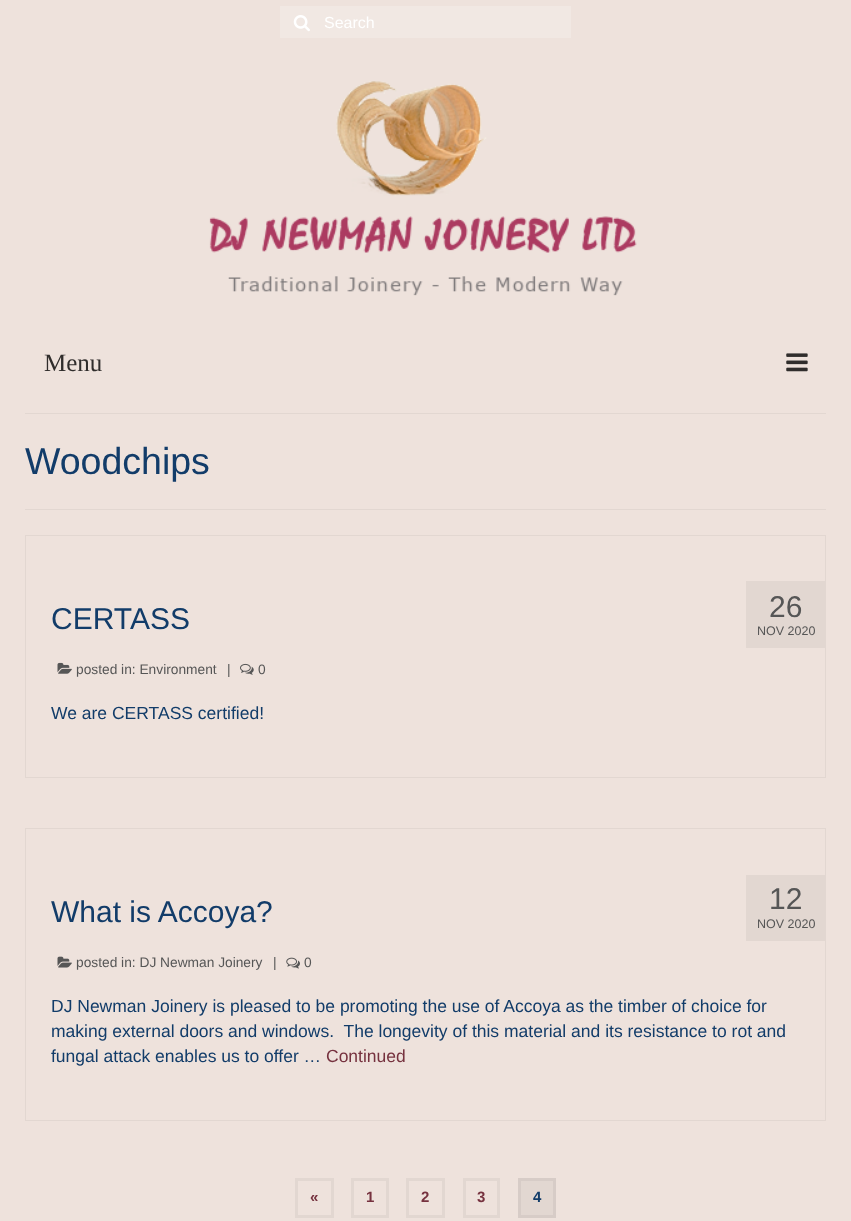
<svg xmlns="http://www.w3.org/2000/svg" width="851" height="1221">
<rect width="100%" height="100%" fill="#eee2dc"/>
<rect x="280" y="6" width="291" height="32" fill="#f1e8e3"/>
<image x="293" y="15" width="17" height="17" href="media/1.png"/>
<text x="324" y="28" style="font-family:Liberation Sans;font-size:16px;fill:#fff">Search</text>
<image x="209" y="81" width="428" height="215" href="media/2.png"/>
<text x="44" y="371" style="font-family:Liberation Serif;font-size:25px;fill:#302d2c">Menu</text>
<image x="786" y="353" width="22" height="19" href="media/3.png"/>
<rect x="25" y="413" width="801" height="1" fill="#e2d7d1"/>
<rect x="25" y="509" width="801" height="1" fill="#e2d7d1"/>
<text x="25" y="474" style="font-family:Liberation Sans;font-size:37.5px;fill:#123c69">Woodchips</text>
<rect x="25.5" y="535.5" width="800" height="242" fill="none" stroke="#e2d7d1"/>
<text x="51" y="629" style="font-family:Liberation Sans;font-size:30px;fill:#123c69">CERTASS</text>
<image x="57" y="662" width="15" height="12" href="media/4.png"/>
<text x="76" y="674" style="font-family:Liberation Sans;font-size:13.75px;fill:#565656">posted in: Environment</text>
<text x="227" y="674" style="font-family:Liberation Sans;font-size:13.75px;fill:#565656">|</text>
<image x="240" y="663" width="14" height="12" href="media/5.png"/>
<text x="258" y="674" style="font-family:Liberation Sans;font-size:13.75px;fill:#565656">0</text>
<rect x="746" y="581" width="79" height="67" fill="#e2d7d1"/>
<text x="769" y="617" style="font-family:Liberation Sans;font-size:30px;fill:#565656">26</text>
<text x="757" y="635" style="font-family:Liberation Sans;font-size:12.5px;fill:#565656">NOV 2020</text>
<text x="51" y="719" style="font-family:Liberation Sans;font-size:17.5px;fill:#123c69">We are CERTASS certified!</text>
<rect x="25.5" y="828.5" width="800" height="292" fill="none" stroke="#e2d7d1"/>
<text x="51" y="922" style="font-family:Liberation Sans;font-size:30px;fill:#123c69">What is Accoya?</text>
<image x="57" y="956" width="15" height="12" href="media/6.png"/>
<text x="76" y="967" style="font-family:Liberation Sans;font-size:13.75px;fill:#565656">posted in: DJ Newman Joinery</text>
<text x="273" y="967" style="font-family:Liberation Sans;font-size:13.75px;fill:#565656">|</text>
<image x="286" y="957" width="14" height="12" href="media/7.png"/>
<text x="304" y="967" style="font-family:Liberation Sans;font-size:13.75px;fill:#565656">0</text>
<rect x="746" y="875" width="79" height="66" fill="#e2d7d1"/>
<text x="769" y="909" style="font-family:Liberation Sans;font-size:30px;fill:#565656">12</text>
<text x="757" y="928" style="font-family:Liberation Sans;font-size:12.5px;fill:#565656">NOV 2020</text>
<text x="51" y="1012" style="font-family:Liberation Sans;font-size:17.5px;fill:#123c69">DJ Newman Joinery is pleased to be promoting the use of Accoya as the timber of choice for</text>
<text x="51" y="1037" style="font-family:Liberation Sans;font-size:17.5px;fill:#123c69" xml:space="preserve">making external doors and windows.  The longevity of this material and its resistance to rot and</text>
<text x="51" y="1062" style="font-family:Liberation Sans;font-size:17.5px;fill:#123c69">fungal attack enables us to offer …</text>
<text x="326" y="1062" style="font-family:Liberation Sans;font-size:17.5px;fill:#76323f">Continued</text>
<rect x="296.5" y="1179.5" width="36" height="37" fill="none" stroke="#e2d7d1" stroke-width="3"/>
<text x="310" y="1202" style="font-family:Liberation Sans;font-size:15px;font-weight:bold;fill:#76323f">«</text>
<rect x="352.5" y="1179.5" width="35" height="37" fill="none" stroke="#e2d7d1" stroke-width="3"/>
<text x="366" y="1202" style="font-family:Liberation Sans;font-size:15px;font-weight:bold;fill:#76323f">1</text>
<rect x="407.5" y="1179.5" width="36" height="37" fill="none" stroke="#e2d7d1" stroke-width="3"/>
<text x="421" y="1202" style="font-family:Liberation Sans;font-size:15px;font-weight:bold;fill:#76323f">2</text>
<rect x="464.5" y="1179.5" width="34" height="37" fill="none" stroke="#e2d7d1" stroke-width="3"/>
<text x="477" y="1202" style="font-family:Liberation Sans;font-size:15px;font-weight:bold;fill:#76323f">3</text>
<rect x="519.5" y="1179.5" width="35" height="37" fill="#e2d7d1" stroke="#d7ccc7" stroke-width="3"/>
<text x="533" y="1202" style="font-family:Liberation Sans;font-size:15px;font-weight:bold;fill:#123c69">4</text>
</svg>
